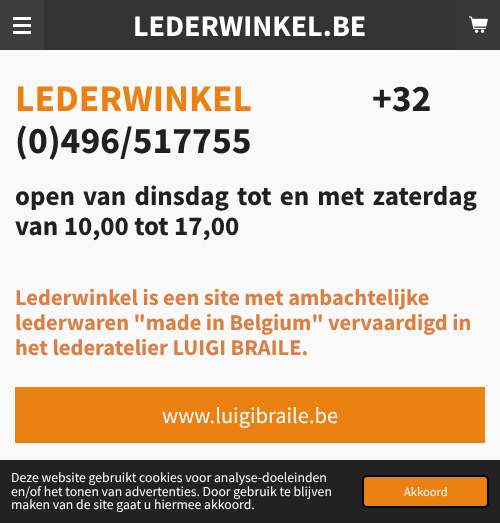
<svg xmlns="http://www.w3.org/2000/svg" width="500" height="523">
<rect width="100%" height="100%" fill="#333"/>
<rect width="44" height="50" fill="#3d3d3d"/>
<rect x="13" y="24" width="18" height="3" fill="#fff"/>
<rect x="13" y="17" width="18" height="3" fill="#fff"/>
<rect x="13" y="31" width="18" height="3" fill="#fff"/>
<text x="133" y="36" style="font-family:Source Sans Pro;font-size:30px;font-weight:bold;fill:#fff">LEDERWINKEL.BE</text>
<rect x="456" width="44" height="50" fill="#383838"/>
<image x="469" y="16" width="19" height="17" href="media/1.png"/>
<rect y="50" width="500" height="410" fill="#f9f9f9"/>
<text x="15" y="111" style="font-family:Source Sans Pro;font-size:37.5px;font-weight:bold;fill:#eb8113">LEDERWINKEL</text>
<text x="372" y="111" style="font-family:Source Sans Pro;font-size:37.5px;font-weight:bold;fill:#202020">+32</text>
<text x="15" y="153" style="font-family:Source Sans Pro;font-size:37.5px;font-weight:bold;fill:#202020">(0)496/517755</text>
<text x="15" y="205" word-spacing="2.75" style="font-family:Source Sans Pro;font-size:27px;font-weight:bold;fill:#202020">open van dinsdag tot en met zaterdag</text>
<text x="15" y="235" style="font-family:Source Sans Pro;font-size:27px;font-weight:bold;fill:#202020">van 10,00 tot 17,00</text>
<text x="15" y="305" style="font-family:Source Sans Pro;font-size:22.5px;font-weight:bold;fill:#da8044">Lederwinkel is een site met ambachtelijke</text>
<text x="15" y="330" style="font-family:Source Sans Pro;font-size:22.5px;font-weight:bold;fill:#da8044">lederwaren "made in Belgium" vervaardigd in</text>
<text x="15" y="355" style="font-family:Source Sans Pro;font-size:22.5px;font-weight:bold;fill:#da8044">het lederatelier LUIGI BRAILE.</text>
<rect x="15" y="387" width="470" height="56" fill="#eb8113"/>
<text x="162" y="423" style="font-family:Source Sans Pro;font-size:22.5px;fill:#fff">www.luigibraile.be</text>
<rect y="460" width="500" height="63" fill="#222"/>
<text x="11" y="482" style="font-family:Source Sans Pro;font-size:13.7px;fill:#fff">Deze website gebruikt cookies voor analyse-doeleinden</text>
<text x="11" y="496" style="font-family:Source Sans Pro;font-size:13.7px;fill:#fff">en/of het tonen van advertenties. Door gebruik te blijven</text>
<text x="11" y="509" style="font-family:Source Sans Pro;font-size:13.7px;fill:#fff">maken van de site gaat u hiermee akkoord.</text>
<rect x="363" y="476" width="125" height="31" rx="4" fill="#eb8113" stroke="#000" stroke-width="2"/>
<text x="404" y="496" style="font-family:Source Sans Pro;font-size:12.5px;fill:#fff">Akkoord</text>
</svg>
